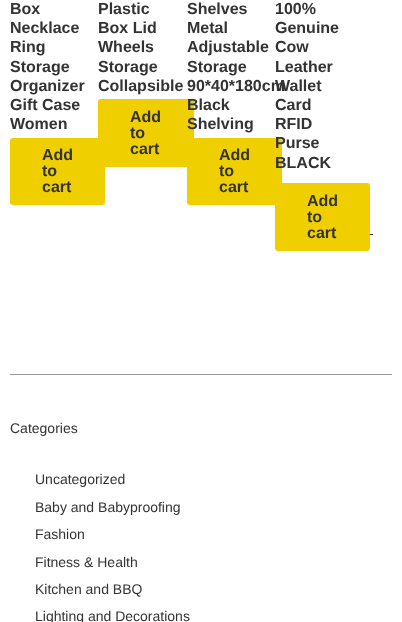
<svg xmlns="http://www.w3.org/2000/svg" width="402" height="622">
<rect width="100%" height="100%" fill="#fff"/>
<text x="10" y="14" style="font-family:Liberation Sans;font-size:16px;font-weight:bold;fill:#333">Box</text>
<text x="10" y="33" style="font-family:Liberation Sans;font-size:16px;font-weight:bold;fill:#333">Necklace</text>
<text x="10" y="52" style="font-family:Liberation Sans;font-size:16px;font-weight:bold;fill:#333">Ring</text>
<text x="10" y="72" style="font-family:Liberation Sans;font-size:16px;font-weight:bold;fill:#333">Storage</text>
<text x="10" y="91" style="font-family:Liberation Sans;font-size:16px;font-weight:bold;fill:#333">Organizer</text>
<text x="10" y="110" style="font-family:Liberation Sans;font-size:16px;font-weight:bold;fill:#333">Gift Case</text>
<text x="10" y="129" style="font-family:Liberation Sans;font-size:16px;font-weight:bold;fill:#333">Women</text>
<rect x="10" y="138" width="95" height="67" rx="3" fill="#efcf00"/>
<text x="42" y="160" style="font-family:Liberation Sans;font-size:16px;font-weight:bold;fill:#333">Add</text>
<text x="42" y="176" style="font-family:Liberation Sans;font-size:16px;font-weight:bold;fill:#333">to</text>
<text x="42" y="192" style="font-family:Liberation Sans;font-size:16px;font-weight:bold;fill:#333">cart</text>
<text x="98" y="14" style="font-family:Liberation Sans;font-size:16px;font-weight:bold;fill:#333">Plastic</text>
<text x="98" y="33" style="font-family:Liberation Sans;font-size:16px;font-weight:bold;fill:#333">Box Lid</text>
<text x="98" y="52" style="font-family:Liberation Sans;font-size:16px;font-weight:bold;fill:#333">Wheels</text>
<text x="98" y="72" style="font-family:Liberation Sans;font-size:16px;font-weight:bold;fill:#333">Storage</text>
<text x="98" y="91" style="font-family:Liberation Sans;font-size:16px;font-weight:bold;fill:#333">Collapsible</text>
<rect x="98" y="99" width="96" height="68" rx="3" fill="#efcf00"/>
<text x="130" y="122" style="font-family:Liberation Sans;font-size:16px;font-weight:bold;fill:#333">Add</text>
<text x="130" y="138" style="font-family:Liberation Sans;font-size:16px;font-weight:bold;fill:#333">to</text>
<text x="130" y="154" style="font-family:Liberation Sans;font-size:16px;font-weight:bold;fill:#333">cart</text>
<text x="187" y="14" style="font-family:Liberation Sans;font-size:16px;font-weight:bold;fill:#333">Shelves</text>
<text x="187" y="33" style="font-family:Liberation Sans;font-size:16px;font-weight:bold;fill:#333">Metal</text>
<text x="187" y="52" style="font-family:Liberation Sans;font-size:16px;font-weight:bold;fill:#333">Adjustable</text>
<text x="187" y="72" style="font-family:Liberation Sans;font-size:16px;font-weight:bold;fill:#333">Storage</text>
<text x="187" y="91" style="font-family:Liberation Sans;font-size:16px;font-weight:bold;fill:#333">90*40*180cm</text>
<text x="187" y="110" style="font-family:Liberation Sans;font-size:16px;font-weight:bold;fill:#333">Black</text>
<text x="187" y="129" style="font-family:Liberation Sans;font-size:16px;font-weight:bold;fill:#333">Shelving</text>
<rect x="187" y="138" width="95" height="67" rx="3" fill="#efcf00"/>
<text x="219" y="160" style="font-family:Liberation Sans;font-size:16px;font-weight:bold;fill:#333">Add</text>
<text x="219" y="176" style="font-family:Liberation Sans;font-size:16px;font-weight:bold;fill:#333">to</text>
<text x="219" y="192" style="font-family:Liberation Sans;font-size:16px;font-weight:bold;fill:#333">cart</text>
<text x="275" y="14" style="font-family:Liberation Sans;font-size:16px;font-weight:bold;fill:#333">100%</text>
<text x="275" y="33" style="font-family:Liberation Sans;font-size:16px;font-weight:bold;fill:#333">Genuine</text>
<text x="275" y="52" style="font-family:Liberation Sans;font-size:16px;font-weight:bold;fill:#333">Cow</text>
<text x="275" y="72" style="font-family:Liberation Sans;font-size:16px;font-weight:bold;fill:#333">Leather</text>
<text x="275" y="91" style="font-family:Liberation Sans;font-size:16px;font-weight:bold;fill:#333">Wallet</text>
<text x="275" y="110" style="font-family:Liberation Sans;font-size:16px;font-weight:bold;fill:#333">Card</text>
<text x="275" y="129" style="font-family:Liberation Sans;font-size:16px;font-weight:bold;fill:#333">RFID</text>
<text x="275" y="148" style="font-family:Liberation Sans;font-size:16px;font-weight:bold;fill:#333">Purse</text>
<text x="275" y="168" style="font-family:Liberation Sans;font-size:16px;font-weight:bold;fill:#333">BLACK</text>
<rect x="370" y="234" width="3" height="1" fill="#333"/>
<rect x="275" y="183" width="95" height="68" rx="3" fill="#efcf00"/>
<text x="307" y="206" style="font-family:Liberation Sans;font-size:16px;font-weight:bold;fill:#333">Add</text>
<text x="307" y="222" style="font-family:Liberation Sans;font-size:16px;font-weight:bold;fill:#333">to</text>
<text x="307" y="238" style="font-family:Liberation Sans;font-size:16px;font-weight:bold;fill:#333">cart</text>
<rect x="10" y="374" width="382" height="1" fill="#999"/>
<text x="10" y="433" style="font-family:Liberation Sans;font-size:14px;fill:#333">Categories</text>
<text x="35" y="484" style="font-family:Liberation Sans;font-size:14px;fill:#333">Uncategorized</text>
<text x="35" y="512" style="font-family:Liberation Sans;font-size:14px;fill:#333">Baby and Babyproofing</text>
<text x="35" y="539" style="font-family:Liberation Sans;font-size:14px;fill:#333">Fashion</text>
<text x="35" y="567" style="font-family:Liberation Sans;font-size:14px;fill:#333">Fitness &amp; Health</text>
<text x="35" y="594" style="font-family:Liberation Sans;font-size:14px;fill:#333">Kitchen and BBQ</text>
<text x="35" y="621" style="font-family:Liberation Sans;font-size:14px;fill:#333">Lighting and Decorations</text>
</svg>
